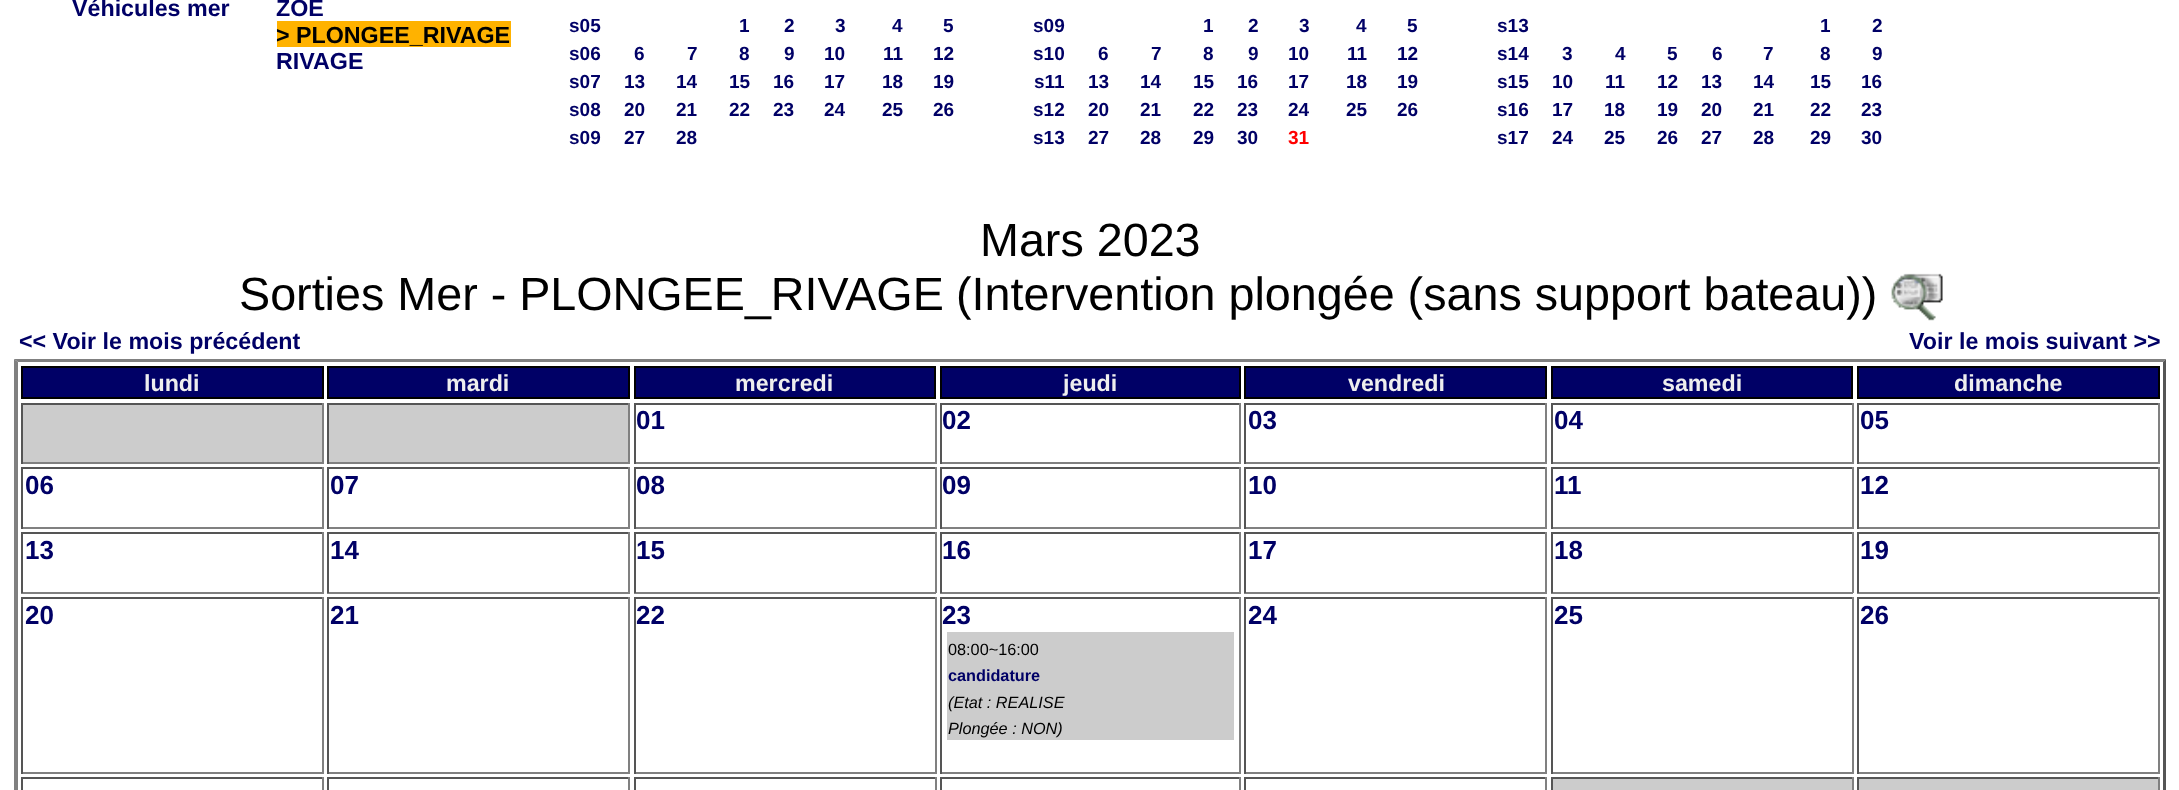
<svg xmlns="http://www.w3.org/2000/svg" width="2179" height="790">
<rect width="100%" height="100%" fill="#fff"/>
<text x="72" y="16" style="font-family:Liberation Sans;font-size:23.25px;font-weight:bold;fill:#006">Véhicules mer</text>
<text x="276" y="16" style="font-family:Liberation Sans;font-size:23.25px;font-weight:bold;fill:#006">ZOE</text>
<rect x="277" y="21" width="234" height="26" fill="#ffb200"/>
<text x="276" y="43" style="font-family:Liberation Sans;font-size:23.25px;font-weight:bold;fill:#000">&gt; PLONGEE_RIVAGE</text>
<text x="276" y="69" style="font-family:Liberation Sans;font-size:23.25px;font-weight:bold;fill:#006">RIVAGE</text>
<text x="569" y="32" style="font-family:Liberation Sans;font-size:19px;font-weight:bold;fill:#006">s05</text>
<text x="739" y="32" style="font-family:Liberation Sans;font-size:19px;font-weight:bold;fill:#006">1</text>
<text x="784" y="32" style="font-family:Liberation Sans;font-size:19px;font-weight:bold;fill:#006">2</text>
<text x="835" y="32" style="font-family:Liberation Sans;font-size:19px;font-weight:bold;fill:#006">3</text>
<text x="892" y="32" style="font-family:Liberation Sans;font-size:19px;font-weight:bold;fill:#006">4</text>
<text x="943" y="32" style="font-family:Liberation Sans;font-size:19px;font-weight:bold;fill:#006">5</text>
<text x="569" y="60" style="font-family:Liberation Sans;font-size:19px;font-weight:bold;fill:#006">s06</text>
<text x="634" y="60" style="font-family:Liberation Sans;font-size:19px;font-weight:bold;fill:#006">6</text>
<text x="687" y="60" style="font-family:Liberation Sans;font-size:19px;font-weight:bold;fill:#006">7</text>
<text x="739" y="60" style="font-family:Liberation Sans;font-size:19px;font-weight:bold;fill:#006">8</text>
<text x="784" y="60" style="font-family:Liberation Sans;font-size:19px;font-weight:bold;fill:#006">9</text>
<text x="824" y="60" style="font-family:Liberation Sans;font-size:19px;font-weight:bold;fill:#006">10</text>
<text x="883" y="60" style="font-family:Liberation Sans;font-size:19px;font-weight:bold;fill:#006">11</text>
<text x="933" y="60" style="font-family:Liberation Sans;font-size:19px;font-weight:bold;fill:#006">12</text>
<text x="569" y="88" style="font-family:Liberation Sans;font-size:19px;font-weight:bold;fill:#006">s07</text>
<text x="624" y="88" style="font-family:Liberation Sans;font-size:19px;font-weight:bold;fill:#006">13</text>
<text x="676" y="88" style="font-family:Liberation Sans;font-size:19px;font-weight:bold;fill:#006">14</text>
<text x="729" y="88" style="font-family:Liberation Sans;font-size:19px;font-weight:bold;fill:#006">15</text>
<text x="773" y="88" style="font-family:Liberation Sans;font-size:19px;font-weight:bold;fill:#006">16</text>
<text x="824" y="88" style="font-family:Liberation Sans;font-size:19px;font-weight:bold;fill:#006">17</text>
<text x="882" y="88" style="font-family:Liberation Sans;font-size:19px;font-weight:bold;fill:#006">18</text>
<text x="933" y="88" style="font-family:Liberation Sans;font-size:19px;font-weight:bold;fill:#006">19</text>
<text x="569" y="116" style="font-family:Liberation Sans;font-size:19px;font-weight:bold;fill:#006">s08</text>
<text x="624" y="116" style="font-family:Liberation Sans;font-size:19px;font-weight:bold;fill:#006">20</text>
<text x="676" y="116" style="font-family:Liberation Sans;font-size:19px;font-weight:bold;fill:#006">21</text>
<text x="729" y="116" style="font-family:Liberation Sans;font-size:19px;font-weight:bold;fill:#006">22</text>
<text x="773" y="116" style="font-family:Liberation Sans;font-size:19px;font-weight:bold;fill:#006">23</text>
<text x="824" y="116" style="font-family:Liberation Sans;font-size:19px;font-weight:bold;fill:#006">24</text>
<text x="882" y="116" style="font-family:Liberation Sans;font-size:19px;font-weight:bold;fill:#006">25</text>
<text x="933" y="116" style="font-family:Liberation Sans;font-size:19px;font-weight:bold;fill:#006">26</text>
<text x="569" y="144" style="font-family:Liberation Sans;font-size:19px;font-weight:bold;fill:#006">s09</text>
<text x="624" y="144" style="font-family:Liberation Sans;font-size:19px;font-weight:bold;fill:#006">27</text>
<text x="676" y="144" style="font-family:Liberation Sans;font-size:19px;font-weight:bold;fill:#006">28</text>
<text x="1033" y="32" style="font-family:Liberation Sans;font-size:19px;font-weight:bold;fill:#006">s09</text>
<text x="1203" y="32" style="font-family:Liberation Sans;font-size:19px;font-weight:bold;fill:#006">1</text>
<text x="1248" y="32" style="font-family:Liberation Sans;font-size:19px;font-weight:bold;fill:#006">2</text>
<text x="1299" y="32" style="font-family:Liberation Sans;font-size:19px;font-weight:bold;fill:#006">3</text>
<text x="1356" y="32" style="font-family:Liberation Sans;font-size:19px;font-weight:bold;fill:#006">4</text>
<text x="1407" y="32" style="font-family:Liberation Sans;font-size:19px;font-weight:bold;fill:#006">5</text>
<text x="1033" y="60" style="font-family:Liberation Sans;font-size:19px;font-weight:bold;fill:#006">s10</text>
<text x="1098" y="60" style="font-family:Liberation Sans;font-size:19px;font-weight:bold;fill:#006">6</text>
<text x="1151" y="60" style="font-family:Liberation Sans;font-size:19px;font-weight:bold;fill:#006">7</text>
<text x="1203" y="60" style="font-family:Liberation Sans;font-size:19px;font-weight:bold;fill:#006">8</text>
<text x="1248" y="60" style="font-family:Liberation Sans;font-size:19px;font-weight:bold;fill:#006">9</text>
<text x="1288" y="60" style="font-family:Liberation Sans;font-size:19px;font-weight:bold;fill:#006">10</text>
<text x="1347" y="60" style="font-family:Liberation Sans;font-size:19px;font-weight:bold;fill:#006">11</text>
<text x="1397" y="60" style="font-family:Liberation Sans;font-size:19px;font-weight:bold;fill:#006">12</text>
<text x="1034" y="88" style="font-family:Liberation Sans;font-size:19px;font-weight:bold;fill:#006">s11</text>
<text x="1088" y="88" style="font-family:Liberation Sans;font-size:19px;font-weight:bold;fill:#006">13</text>
<text x="1140" y="88" style="font-family:Liberation Sans;font-size:19px;font-weight:bold;fill:#006">14</text>
<text x="1193" y="88" style="font-family:Liberation Sans;font-size:19px;font-weight:bold;fill:#006">15</text>
<text x="1237" y="88" style="font-family:Liberation Sans;font-size:19px;font-weight:bold;fill:#006">16</text>
<text x="1288" y="88" style="font-family:Liberation Sans;font-size:19px;font-weight:bold;fill:#006">17</text>
<text x="1346" y="88" style="font-family:Liberation Sans;font-size:19px;font-weight:bold;fill:#006">18</text>
<text x="1397" y="88" style="font-family:Liberation Sans;font-size:19px;font-weight:bold;fill:#006">19</text>
<text x="1033" y="116" style="font-family:Liberation Sans;font-size:19px;font-weight:bold;fill:#006">s12</text>
<text x="1088" y="116" style="font-family:Liberation Sans;font-size:19px;font-weight:bold;fill:#006">20</text>
<text x="1140" y="116" style="font-family:Liberation Sans;font-size:19px;font-weight:bold;fill:#006">21</text>
<text x="1193" y="116" style="font-family:Liberation Sans;font-size:19px;font-weight:bold;fill:#006">22</text>
<text x="1237" y="116" style="font-family:Liberation Sans;font-size:19px;font-weight:bold;fill:#006">23</text>
<text x="1288" y="116" style="font-family:Liberation Sans;font-size:19px;font-weight:bold;fill:#006">24</text>
<text x="1346" y="116" style="font-family:Liberation Sans;font-size:19px;font-weight:bold;fill:#006">25</text>
<text x="1397" y="116" style="font-family:Liberation Sans;font-size:19px;font-weight:bold;fill:#006">26</text>
<text x="1033" y="144" style="font-family:Liberation Sans;font-size:19px;font-weight:bold;fill:#006">s13</text>
<text x="1088" y="144" style="font-family:Liberation Sans;font-size:19px;font-weight:bold;fill:#006">27</text>
<text x="1140" y="144" style="font-family:Liberation Sans;font-size:19px;font-weight:bold;fill:#006">28</text>
<text x="1193" y="144" style="font-family:Liberation Sans;font-size:19px;font-weight:bold;fill:#006">29</text>
<text x="1237" y="144" style="font-family:Liberation Sans;font-size:19px;font-weight:bold;fill:#006">30</text>
<text x="1288" y="144" style="font-family:Liberation Sans;font-size:19px;font-weight:bold;fill:#f00">31</text>
<text x="1497" y="32" style="font-family:Liberation Sans;font-size:19px;font-weight:bold;fill:#006">s13</text>
<text x="1820" y="32" style="font-family:Liberation Sans;font-size:19px;font-weight:bold;fill:#006">1</text>
<text x="1872" y="32" style="font-family:Liberation Sans;font-size:19px;font-weight:bold;fill:#006">2</text>
<text x="1497" y="60" style="font-family:Liberation Sans;font-size:19px;font-weight:bold;fill:#006">s14</text>
<text x="1562" y="60" style="font-family:Liberation Sans;font-size:19px;font-weight:bold;fill:#006">3</text>
<text x="1615" y="60" style="font-family:Liberation Sans;font-size:19px;font-weight:bold;fill:#006">4</text>
<text x="1667" y="60" style="font-family:Liberation Sans;font-size:19px;font-weight:bold;fill:#006">5</text>
<text x="1712" y="60" style="font-family:Liberation Sans;font-size:19px;font-weight:bold;fill:#006">6</text>
<text x="1763" y="60" style="font-family:Liberation Sans;font-size:19px;font-weight:bold;fill:#006">7</text>
<text x="1820" y="60" style="font-family:Liberation Sans;font-size:19px;font-weight:bold;fill:#006">8</text>
<text x="1872" y="60" style="font-family:Liberation Sans;font-size:19px;font-weight:bold;fill:#006">9</text>
<text x="1497" y="88" style="font-family:Liberation Sans;font-size:19px;font-weight:bold;fill:#006">s15</text>
<text x="1552" y="88" style="font-family:Liberation Sans;font-size:19px;font-weight:bold;fill:#006">10</text>
<text x="1605" y="88" style="font-family:Liberation Sans;font-size:19px;font-weight:bold;fill:#006">11</text>
<text x="1657" y="88" style="font-family:Liberation Sans;font-size:19px;font-weight:bold;fill:#006">12</text>
<text x="1701" y="88" style="font-family:Liberation Sans;font-size:19px;font-weight:bold;fill:#006">13</text>
<text x="1753" y="88" style="font-family:Liberation Sans;font-size:19px;font-weight:bold;fill:#006">14</text>
<text x="1810" y="88" style="font-family:Liberation Sans;font-size:19px;font-weight:bold;fill:#006">15</text>
<text x="1861" y="88" style="font-family:Liberation Sans;font-size:19px;font-weight:bold;fill:#006">16</text>
<text x="1497" y="116" style="font-family:Liberation Sans;font-size:19px;font-weight:bold;fill:#006">s16</text>
<text x="1552" y="116" style="font-family:Liberation Sans;font-size:19px;font-weight:bold;fill:#006">17</text>
<text x="1604" y="116" style="font-family:Liberation Sans;font-size:19px;font-weight:bold;fill:#006">18</text>
<text x="1657" y="116" style="font-family:Liberation Sans;font-size:19px;font-weight:bold;fill:#006">19</text>
<text x="1701" y="116" style="font-family:Liberation Sans;font-size:19px;font-weight:bold;fill:#006">20</text>
<text x="1753" y="116" style="font-family:Liberation Sans;font-size:19px;font-weight:bold;fill:#006">21</text>
<text x="1810" y="116" style="font-family:Liberation Sans;font-size:19px;font-weight:bold;fill:#006">22</text>
<text x="1861" y="116" style="font-family:Liberation Sans;font-size:19px;font-weight:bold;fill:#006">23</text>
<text x="1497" y="144" style="font-family:Liberation Sans;font-size:19px;font-weight:bold;fill:#006">s17</text>
<text x="1552" y="144" style="font-family:Liberation Sans;font-size:19px;font-weight:bold;fill:#006">24</text>
<text x="1604" y="144" style="font-family:Liberation Sans;font-size:19px;font-weight:bold;fill:#006">25</text>
<text x="1657" y="144" style="font-family:Liberation Sans;font-size:19px;font-weight:bold;fill:#006">26</text>
<text x="1701" y="144" style="font-family:Liberation Sans;font-size:19px;font-weight:bold;fill:#006">27</text>
<text x="1753" y="144" style="font-family:Liberation Sans;font-size:19px;font-weight:bold;fill:#006">28</text>
<text x="1810" y="144" style="font-family:Liberation Sans;font-size:19px;font-weight:bold;fill:#006">29</text>
<text x="1861" y="144" style="font-family:Liberation Sans;font-size:19px;font-weight:bold;fill:#006">30</text>
<text x="980" y="256" style="font-family:Liberation Sans;font-size:46.7px;fill:#000">Mars 2023</text>
<text x="239" y="310" style="font-family:Liberation Sans;font-size:46.7px;fill:#000">Sorties Mer - PLONGEE_RIVAGE</text>
<text x="956" y="310" style="font-family:Liberation Sans;font-size:46.7px;fill:#000">(Intervention plongée (sans support bateau))</text>
<image x="1891" y="273" width="52" height="48" href="media/1.png"/>
<text x="19" y="349" style="font-family:Liberation Sans;font-size:23.25px;font-weight:bold;fill:#006">&lt;&lt; Voir le mois précédent</text>
<text x="1909" y="349" style="font-family:Liberation Sans;font-size:23.25px;font-weight:bold;fill:#006">Voir le mois suivant &gt;&gt;</text>
<path d="M14 359h2152l-3 3h-2145z" fill="#808080"/>
<path d="M2166 359v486l-3-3v-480z" fill="#555"/>
<path d="M14 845v-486l4 3v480z" fill="#808080"/>
<rect x="22" y="367" width="301" height="31" fill="#006" stroke="#000" stroke-width="2"/>
<text x="144" y="391" style="font-family:Liberation Sans;font-size:23.25px;font-weight:bold;fill:#eee">lundi</text>
<rect x="328" y="367" width="301" height="31" fill="#006" stroke="#000" stroke-width="2"/>
<text x="446" y="391" style="font-family:Liberation Sans;font-size:23.25px;font-weight:bold;fill:#eee">mardi</text>
<rect x="635" y="367" width="300" height="31" fill="#006" stroke="#000" stroke-width="2"/>
<text x="735" y="391" style="font-family:Liberation Sans;font-size:23.25px;font-weight:bold;fill:#eee">mercredi</text>
<rect x="941" y="367" width="299" height="31" fill="#006" stroke="#000" stroke-width="2"/>
<text x="1063" y="391" style="font-family:Liberation Sans;font-size:23.25px;font-weight:bold;fill:#eee">jeudi</text>
<rect x="1245" y="367" width="301" height="31" fill="#006" stroke="#000" stroke-width="2"/>
<text x="1348" y="391" style="font-family:Liberation Sans;font-size:23.25px;font-weight:bold;fill:#eee">vendredi</text>
<rect x="1552" y="367" width="300" height="31" fill="#006" stroke="#000" stroke-width="2"/>
<text x="1662" y="391" style="font-family:Liberation Sans;font-size:23.25px;font-weight:bold;fill:#eee">samedi</text>
<rect x="1858" y="367" width="301" height="31" fill="#006" stroke="#000" stroke-width="2"/>
<text x="1954" y="391" style="font-family:Liberation Sans;font-size:23.25px;font-weight:bold;fill:#eee">dimanche</text>
<rect x="23" y="405" width="299" height="57" fill="#ccc"/>
<rect x="21" y="403" width="303" height="2" fill="#555"/>
<rect x="322" y="403" width="2" height="61" fill="#808080"/>
<rect x="21" y="462" width="303" height="2" fill="#808080"/>
<rect x="21" y="403" width="2" height="61" fill="#555"/>
<rect x="329" y="405" width="299" height="57" fill="#ccc"/>
<rect x="327" y="403" width="303" height="2" fill="#555"/>
<rect x="628" y="403" width="2" height="61" fill="#808080"/>
<rect x="327" y="462" width="303" height="2" fill="#808080"/>
<rect x="327" y="403" width="2" height="61" fill="#555"/>
<rect x="634" y="403" width="302" height="2" fill="#555"/>
<rect x="935" y="403" width="2" height="61" fill="#808080"/>
<rect x="634" y="462" width="302" height="2" fill="#808080"/>
<rect x="634" y="403" width="2" height="61" fill="#555"/>
<text x="636" y="429" style="font-family:Liberation Sans;font-size:26px;font-weight:bold;fill:#006">01</text>
<rect x="940" y="403" width="301" height="2" fill="#555"/>
<rect x="1239" y="403" width="2" height="61" fill="#808080"/>
<rect x="940" y="462" width="301" height="2" fill="#808080"/>
<rect x="940" y="403" width="2" height="61" fill="#555"/>
<text x="942" y="429" style="font-family:Liberation Sans;font-size:26px;font-weight:bold;fill:#006">02</text>
<rect x="1244" y="403" width="303" height="2" fill="#555"/>
<rect x="1545" y="403" width="2" height="61" fill="#808080"/>
<rect x="1244" y="462" width="303" height="2" fill="#808080"/>
<rect x="1244" y="403" width="2" height="61" fill="#555"/>
<text x="1248" y="429" style="font-family:Liberation Sans;font-size:26px;font-weight:bold;fill:#006">03</text>
<rect x="1551" y="403" width="302" height="2" fill="#555"/>
<rect x="1852" y="403" width="2" height="61" fill="#808080"/>
<rect x="1551" y="462" width="302" height="2" fill="#808080"/>
<rect x="1551" y="403" width="2" height="61" fill="#555"/>
<text x="1554" y="429" style="font-family:Liberation Sans;font-size:26px;font-weight:bold;fill:#006">04</text>
<rect x="1857" y="403" width="303" height="2" fill="#555"/>
<rect x="2158" y="403" width="2" height="61" fill="#808080"/>
<rect x="1857" y="462" width="303" height="2" fill="#808080"/>
<rect x="1857" y="403" width="2" height="61" fill="#555"/>
<text x="1860" y="429" style="font-family:Liberation Sans;font-size:26px;font-weight:bold;fill:#006">05</text>
<rect x="21" y="467" width="303" height="2" fill="#555"/>
<rect x="322" y="467" width="2" height="62" fill="#808080"/>
<rect x="21" y="527" width="303" height="2" fill="#808080"/>
<rect x="21" y="467" width="2" height="62" fill="#555"/>
<text x="25" y="494" style="font-family:Liberation Sans;font-size:26px;font-weight:bold;fill:#006">06</text>
<rect x="327" y="467" width="303" height="2" fill="#555"/>
<rect x="628" y="467" width="2" height="62" fill="#808080"/>
<rect x="327" y="527" width="303" height="2" fill="#808080"/>
<rect x="327" y="467" width="2" height="62" fill="#555"/>
<text x="330" y="494" style="font-family:Liberation Sans;font-size:26px;font-weight:bold;fill:#006">07</text>
<rect x="634" y="467" width="302" height="2" fill="#555"/>
<rect x="935" y="467" width="2" height="62" fill="#808080"/>
<rect x="634" y="527" width="302" height="2" fill="#808080"/>
<rect x="634" y="467" width="2" height="62" fill="#555"/>
<text x="636" y="494" style="font-family:Liberation Sans;font-size:26px;font-weight:bold;fill:#006">08</text>
<rect x="940" y="467" width="301" height="2" fill="#555"/>
<rect x="1239" y="467" width="2" height="62" fill="#808080"/>
<rect x="940" y="527" width="301" height="2" fill="#808080"/>
<rect x="940" y="467" width="2" height="62" fill="#555"/>
<text x="942" y="494" style="font-family:Liberation Sans;font-size:26px;font-weight:bold;fill:#006">09</text>
<rect x="1244" y="467" width="303" height="2" fill="#555"/>
<rect x="1545" y="467" width="2" height="62" fill="#808080"/>
<rect x="1244" y="527" width="303" height="2" fill="#808080"/>
<rect x="1244" y="467" width="2" height="62" fill="#555"/>
<text x="1248" y="494" style="font-family:Liberation Sans;font-size:26px;font-weight:bold;fill:#006">10</text>
<rect x="1551" y="467" width="302" height="2" fill="#555"/>
<rect x="1852" y="467" width="2" height="62" fill="#808080"/>
<rect x="1551" y="527" width="302" height="2" fill="#808080"/>
<rect x="1551" y="467" width="2" height="62" fill="#555"/>
<text x="1554" y="494" style="font-family:Liberation Sans;font-size:26px;font-weight:bold;fill:#006">11</text>
<rect x="1857" y="467" width="303" height="2" fill="#555"/>
<rect x="2158" y="467" width="2" height="62" fill="#808080"/>
<rect x="1857" y="527" width="303" height="2" fill="#808080"/>
<rect x="1857" y="467" width="2" height="62" fill="#555"/>
<text x="1860" y="494" style="font-family:Liberation Sans;font-size:26px;font-weight:bold;fill:#006">12</text>
<rect x="21" y="532" width="303" height="2" fill="#555"/>
<rect x="322" y="532" width="2" height="61" fill="#808080"/>
<rect x="21" y="592" width="303" height="2" fill="#808080"/>
<rect x="21" y="532" width="2" height="61" fill="#555"/>
<text x="25" y="559" style="font-family:Liberation Sans;font-size:26px;font-weight:bold;fill:#006">13</text>
<rect x="327" y="532" width="303" height="2" fill="#555"/>
<rect x="628" y="532" width="2" height="61" fill="#808080"/>
<rect x="327" y="592" width="303" height="2" fill="#808080"/>
<rect x="327" y="532" width="2" height="61" fill="#555"/>
<text x="330" y="559" style="font-family:Liberation Sans;font-size:26px;font-weight:bold;fill:#006">14</text>
<rect x="634" y="532" width="302" height="2" fill="#555"/>
<rect x="935" y="532" width="2" height="61" fill="#808080"/>
<rect x="634" y="592" width="302" height="2" fill="#808080"/>
<rect x="634" y="532" width="2" height="61" fill="#555"/>
<text x="636" y="559" style="font-family:Liberation Sans;font-size:26px;font-weight:bold;fill:#006">15</text>
<rect x="940" y="532" width="301" height="2" fill="#555"/>
<rect x="1239" y="532" width="2" height="61" fill="#808080"/>
<rect x="940" y="592" width="301" height="2" fill="#808080"/>
<rect x="940" y="532" width="2" height="61" fill="#555"/>
<text x="942" y="559" style="font-family:Liberation Sans;font-size:26px;font-weight:bold;fill:#006">16</text>
<rect x="1244" y="532" width="303" height="2" fill="#555"/>
<rect x="1545" y="532" width="2" height="61" fill="#808080"/>
<rect x="1244" y="592" width="303" height="2" fill="#808080"/>
<rect x="1244" y="532" width="2" height="61" fill="#555"/>
<text x="1248" y="559" style="font-family:Liberation Sans;font-size:26px;font-weight:bold;fill:#006">17</text>
<rect x="1551" y="532" width="302" height="2" fill="#555"/>
<rect x="1852" y="532" width="2" height="61" fill="#808080"/>
<rect x="1551" y="592" width="302" height="2" fill="#808080"/>
<rect x="1551" y="532" width="2" height="61" fill="#555"/>
<text x="1554" y="559" style="font-family:Liberation Sans;font-size:26px;font-weight:bold;fill:#006">18</text>
<rect x="1857" y="532" width="303" height="2" fill="#555"/>
<rect x="2158" y="532" width="2" height="61" fill="#808080"/>
<rect x="1857" y="592" width="303" height="2" fill="#808080"/>
<rect x="1857" y="532" width="2" height="61" fill="#555"/>
<text x="1860" y="559" style="font-family:Liberation Sans;font-size:26px;font-weight:bold;fill:#006">19</text>
<rect x="21" y="597" width="303" height="2" fill="#555"/>
<rect x="322" y="597" width="2" height="177" fill="#808080"/>
<rect x="21" y="772" width="303" height="2" fill="#808080"/>
<rect x="21" y="597" width="2" height="177" fill="#555"/>
<text x="25" y="624" style="font-family:Liberation Sans;font-size:26px;font-weight:bold;fill:#006">20</text>
<rect x="327" y="597" width="303" height="2" fill="#555"/>
<rect x="628" y="597" width="2" height="177" fill="#808080"/>
<rect x="327" y="772" width="303" height="2" fill="#808080"/>
<rect x="327" y="597" width="2" height="177" fill="#555"/>
<text x="330" y="624" style="font-family:Liberation Sans;font-size:26px;font-weight:bold;fill:#006">21</text>
<rect x="634" y="597" width="302" height="2" fill="#555"/>
<rect x="935" y="597" width="2" height="177" fill="#808080"/>
<rect x="634" y="772" width="302" height="2" fill="#808080"/>
<rect x="634" y="597" width="2" height="177" fill="#555"/>
<text x="636" y="624" style="font-family:Liberation Sans;font-size:26px;font-weight:bold;fill:#006">22</text>
<rect x="940" y="597" width="301" height="2" fill="#555"/>
<rect x="1239" y="597" width="2" height="177" fill="#808080"/>
<rect x="940" y="772" width="301" height="2" fill="#808080"/>
<rect x="940" y="597" width="2" height="177" fill="#555"/>
<text x="942" y="624" style="font-family:Liberation Sans;font-size:26px;font-weight:bold;fill:#006">23</text>
<rect x="947" y="632" width="287" height="108" fill="#ccc"/>
<text x="948" y="655" style="font-family:Liberation Sans;font-size:16.25px;fill:#000">08:00~16:00</text>
<text x="948" y="681" style="font-family:Liberation Sans;font-size:16.25px;font-weight:bold;fill:#006">candidature</text>
<text x="948" y="708" style="font-family:Liberation Sans;font-size:16.25px;font-style:italic;fill:#000">(Etat : REALISE</text>
<text x="948" y="734" style="font-family:Liberation Sans;font-size:16.25px;font-style:italic;fill:#000">Plongée : NON)</text>
<rect x="1244" y="597" width="303" height="2" fill="#555"/>
<rect x="1545" y="597" width="2" height="177" fill="#808080"/>
<rect x="1244" y="772" width="303" height="2" fill="#808080"/>
<rect x="1244" y="597" width="2" height="177" fill="#555"/>
<text x="1248" y="624" style="font-family:Liberation Sans;font-size:26px;font-weight:bold;fill:#006">24</text>
<rect x="1551" y="597" width="302" height="2" fill="#555"/>
<rect x="1852" y="597" width="2" height="177" fill="#808080"/>
<rect x="1551" y="772" width="302" height="2" fill="#808080"/>
<rect x="1551" y="597" width="2" height="177" fill="#555"/>
<text x="1554" y="624" style="font-family:Liberation Sans;font-size:26px;font-weight:bold;fill:#006">25</text>
<rect x="1857" y="597" width="303" height="2" fill="#555"/>
<rect x="2158" y="597" width="2" height="177" fill="#808080"/>
<rect x="1857" y="772" width="303" height="2" fill="#808080"/>
<rect x="1857" y="597" width="2" height="177" fill="#555"/>
<text x="1860" y="624" style="font-family:Liberation Sans;font-size:26px;font-weight:bold;fill:#006">26</text>
<rect x="21" y="777" width="303" height="2" fill="#555"/>
<rect x="322" y="777" width="2" height="13" fill="#808080"/>
<rect x="21" y="777" width="2" height="13" fill="#555"/>
<rect x="327" y="777" width="303" height="2" fill="#555"/>
<rect x="628" y="777" width="2" height="13" fill="#808080"/>
<rect x="327" y="777" width="2" height="13" fill="#555"/>
<rect x="634" y="777" width="302" height="2" fill="#555"/>
<rect x="935" y="777" width="2" height="13" fill="#808080"/>
<rect x="634" y="777" width="2" height="13" fill="#555"/>
<rect x="940" y="777" width="301" height="2" fill="#555"/>
<rect x="1239" y="777" width="2" height="13" fill="#808080"/>
<rect x="940" y="777" width="2" height="13" fill="#555"/>
<rect x="1244" y="777" width="303" height="2" fill="#555"/>
<rect x="1545" y="777" width="2" height="13" fill="#808080"/>
<rect x="1244" y="777" width="2" height="13" fill="#555"/>
<rect x="1553" y="779" width="299" height="11" fill="#ccc"/>
<rect x="1551" y="777" width="302" height="2" fill="#555"/>
<rect x="1852" y="777" width="2" height="13" fill="#808080"/>
<rect x="1551" y="777" width="2" height="13" fill="#555"/>
<rect x="1859" y="779" width="299" height="11" fill="#ccc"/>
<rect x="1857" y="777" width="303" height="2" fill="#555"/>
<rect x="2158" y="777" width="2" height="13" fill="#808080"/>
<rect x="1857" y="777" width="2" height="13" fill="#555"/>
</svg>
